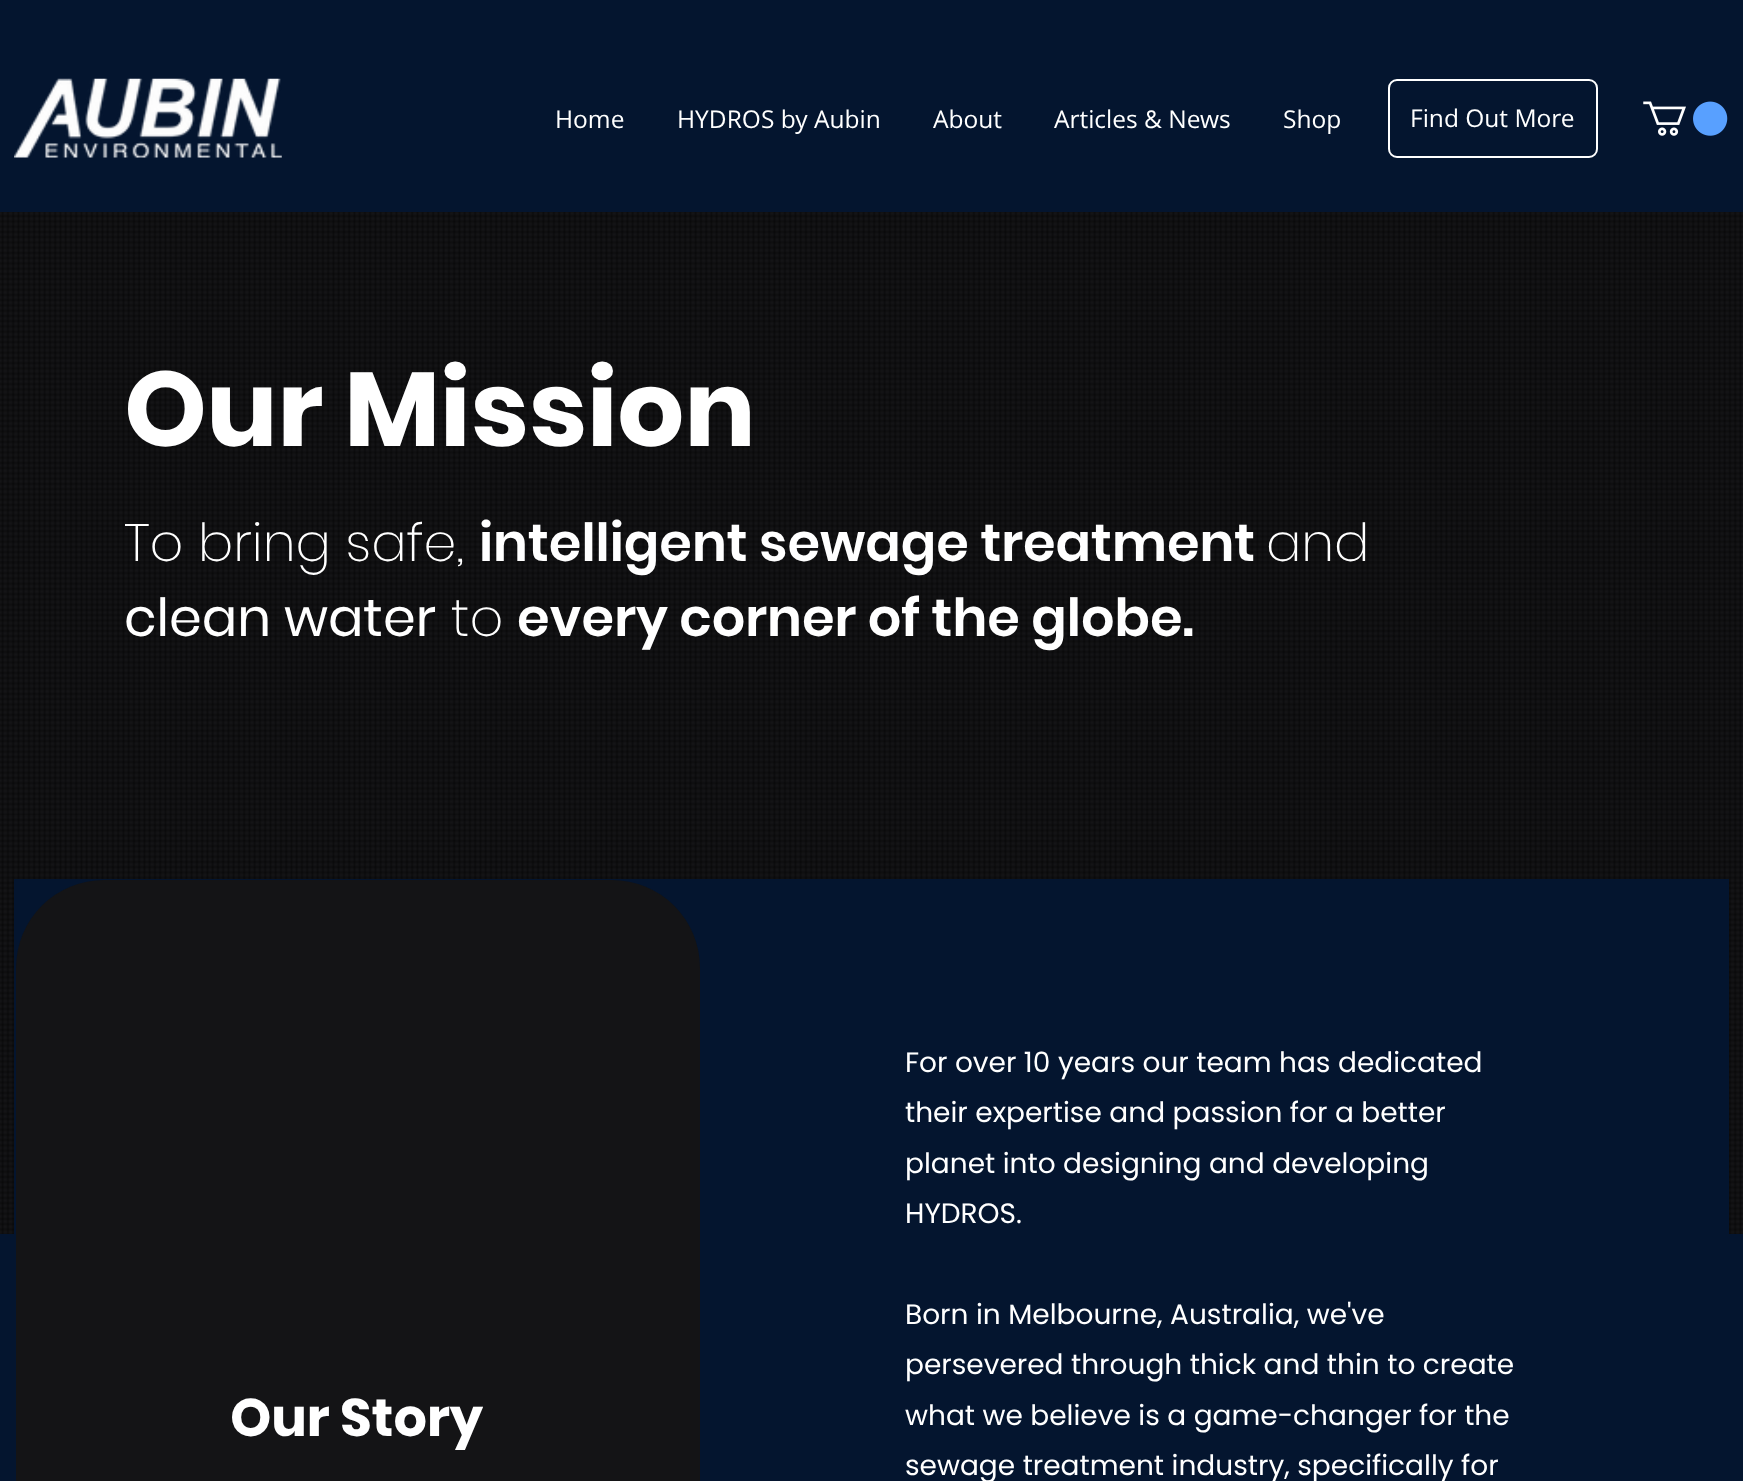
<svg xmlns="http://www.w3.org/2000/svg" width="1743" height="1481">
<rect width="100%" height="100%" fill="#04152f"/>
<image x="14" y="78" width="268" height="80" href="media/1.png"/>
<text x="555" y="128" style="font-family:Open Sans;font-size:24.5px;fill:#fff">Home</text>
<text x="677" y="128" style="font-family:Open Sans;font-size:24.5px;fill:#fff">HYDROS by Aubin</text>
<text x="933" y="128" style="font-family:Open Sans;font-size:24.5px;fill:#fff">About</text>
<text x="1054" y="128" style="font-family:Open Sans;font-size:24.5px;fill:#fff">Articles &amp; News</text>
<text x="1283" y="128" style="font-family:Open Sans;font-size:24.5px;fill:#fff">Shop</text>
<rect x="1389" y="80" width="208" height="77" rx="8" fill="none" stroke="#fff" stroke-width="2"/>
<text x="1410" y="127" style="font-family:Open Sans;font-size:24.5px;fill:#fff">Find Out More</text>
<image x="1643" y="101" width="85" height="35" href="media/2.png"/>
<rect y="212" width="1743" height="1022" fill="#141416"/>
<image x="0" y="212" width="1743" height="1022" href="media/3.png"/>
<text x="124" y="446" style="font-family:Poppins;font-size:105px;font-weight:bold;fill:#fff">Our Mission</text>
<text x="124" y="561" style="font-family:Poppins;font-size:52.5px;font-weight:200;fill:#fff">To bring safe,</text>
<text x="479" y="561" style="font-family:Poppins;font-size:52.5px;font-weight:600;fill:#fff">intelligent sewage treatment</text>
<text x="1266" y="561" style="font-family:Poppins;font-size:52.5px;font-weight:200;fill:#fff">and</text>
<text x="124" y="636" style="font-family:Poppins;font-size:52.5px;fill:#fff">clean water</text>
<text x="451" y="636" style="font-family:Poppins;font-size:52.5px;font-weight:200;fill:#fff">to</text>
<text x="517" y="636" style="font-family:Poppins;font-size:52.5px;font-weight:600;fill:#fff">every corner of the globe.</text>
<rect x="14" y="879" width="1715" height="355" fill="#04152f"/>
<rect x="16" y="880" width="684" height="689" rx="88" fill="#141416"/>
<text x="230" y="1436" style="font-family:Poppins;font-size:52.5px;font-weight:bold;fill:#fff">Our Story</text>
<text x="905" y="1072" style="font-family:'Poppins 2';font-size:28px;fill:#fff">For over 10 years our team has dedicated</text>
<text x="905" y="1122" style="font-family:'Poppins 2';font-size:28px;fill:#fff">their expertise and passion for a better</text>
<text x="905" y="1173" style="font-family:'Poppins 2';font-size:28px;fill:#fff">planet into designing and developing</text>
<text x="905" y="1223" style="font-family:'Poppins 2';font-size:28px;fill:#fff">HYDROS.</text>
<text x="905" y="1324" style="font-family:'Poppins 2';font-size:28px;fill:#fff">Born in Melbourne, Australia, we've</text>
<text x="905" y="1374" style="font-family:'Poppins 2';font-size:28px;fill:#fff">persevered through thick and thin to create</text>
<text x="905" y="1425" style="font-family:'Poppins 2';font-size:28px;fill:#fff">what we believe is a game-changer for the</text>
<text x="905" y="1475" style="font-family:'Poppins 2';font-size:28px;fill:#fff">sewage treatment industry, specifically for</text>
</svg>
